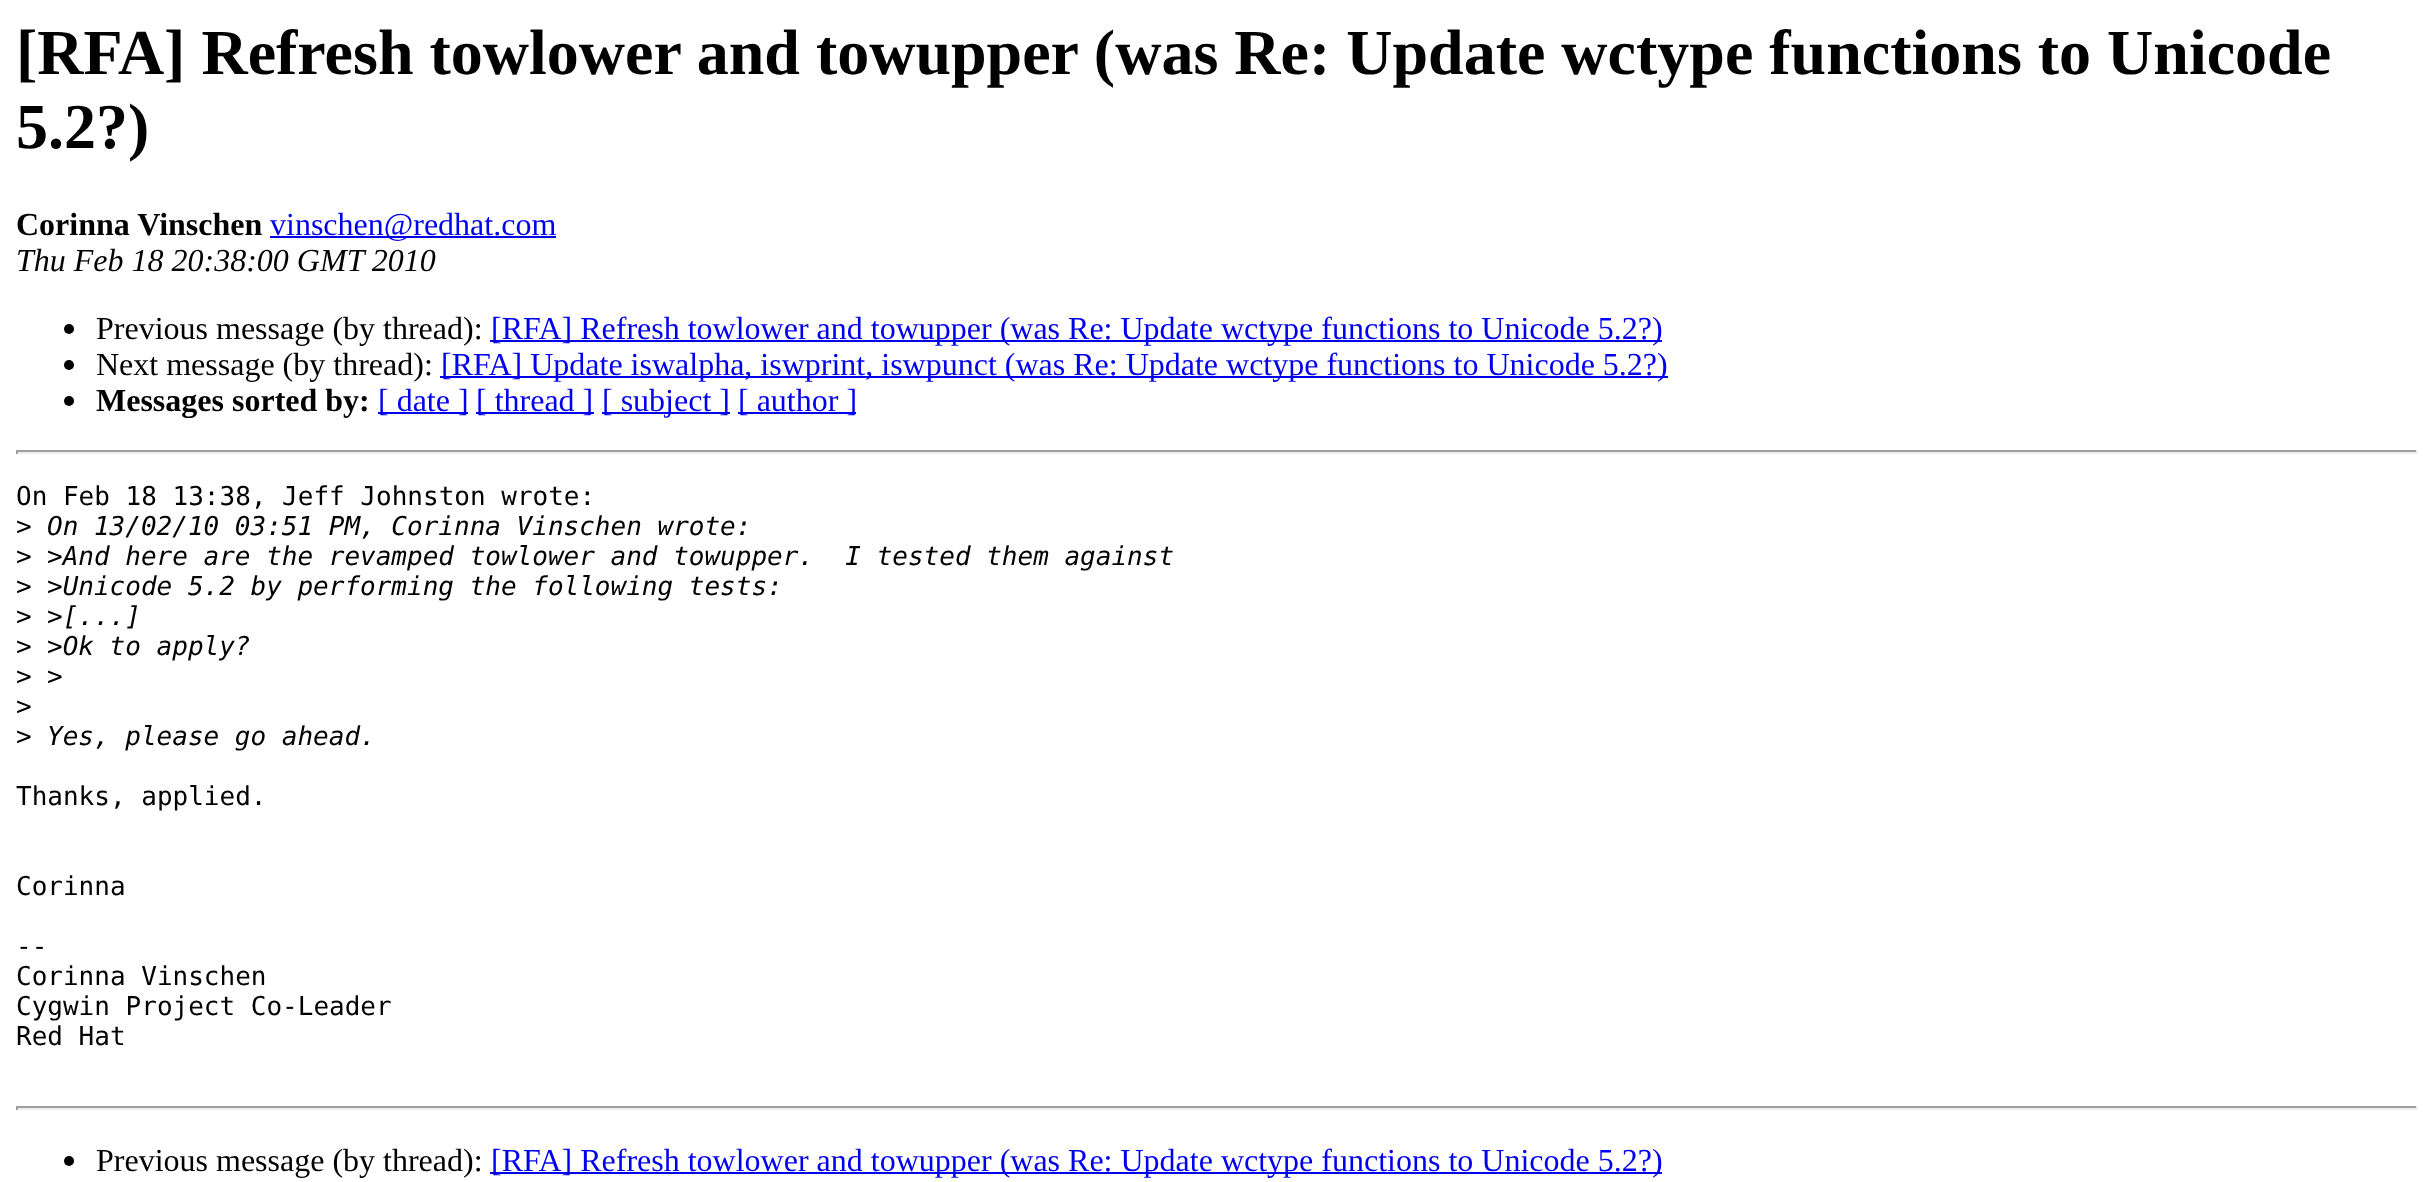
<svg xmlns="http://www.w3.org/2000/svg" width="2433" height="1182">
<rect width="100%" height="100%" fill="#fff"/>
<text x="16" y="74" style="font-family:Liberation Serif;font-size:64px;font-weight:bold;fill:#000">[RFA] Refresh towlower and towupper (was Re: Update wctype functions to Unicode</text>
<text x="16" y="148" style="font-family:Liberation Serif;font-size:64px;font-weight:bold;fill:#000">5.2?)</text>
<text x="16" y="235" style="font-family:Liberation Serif;font-size:32px;font-weight:bold;fill:#000">Corinna Vinschen</text>
<rect x="270" y="236" width="286" height="2" fill="#00e"/>
<text x="270" y="235" style="font-family:Liberation Serif;font-size:32px;fill:#00e">vinschen@redhat.com</text>
<text x="16" y="271" style="font-family:Liberation Serif;font-size:32px;font-style:italic;fill:#000">Thu Feb 18 20:38:00 GMT 2010</text>
<circle cx="69" cy="329" r="5" fill="#000"/>
<text x="96" y="339" style="font-family:Liberation Serif;font-size:32px;fill:#000">Previous message (by thread):</text>
<rect x="490" y="340" width="1172" height="2" fill="#00e"/>
<text x="491" y="339" style="font-family:Liberation Serif;font-size:32px;fill:#00e">[RFA] Refresh towlower and towupper (was Re: Update wctype functions to Unicode 5.2?)</text>
<circle cx="69" cy="365" r="5" fill="#000"/>
<text x="96" y="375" style="font-family:Liberation Serif;font-size:32px;fill:#000">Next message (by thread):</text>
<rect x="440" y="376" width="1228" height="2" fill="#00e"/>
<text x="441" y="375" style="font-family:Liberation Serif;font-size:32px;fill:#00e">[RFA] Update iswalpha, iswprint, iswpunct (was Re: Update wctype functions to Unicode 5.2?)</text>
<circle cx="69" cy="401" r="5" fill="#000"/>
<text x="96" y="411" style="font-family:Liberation Serif;font-size:32px;font-weight:bold;fill:#000">Messages sorted by:</text>
<rect x="378" y="412" width="90" height="2" fill="#00e"/>
<text x="378" y="411" style="font-family:Liberation Serif;font-size:32px;fill:#00e">[ date ]</text>
<rect x="476" y="412" width="118" height="2" fill="#00e"/>
<text x="476" y="411" style="font-family:Liberation Serif;font-size:32px;fill:#00e">[ thread ]</text>
<rect x="602" y="412" width="128" height="2" fill="#00e"/>
<text x="602" y="411" style="font-family:Liberation Serif;font-size:32px;fill:#00e">[ subject ]</text>
<rect x="738" y="412" width="118" height="2" fill="#00e"/>
<text x="738" y="411" style="font-family:Liberation Serif;font-size:32px;fill:#00e">[ author ]</text>
<rect x="16" y="450" width="2402" height="2" fill="#9f9f9f"/>
<rect x="2416" y="450" width="2" height="4" fill="#eee"/>
<rect x="16" y="452" width="2402" height="2" fill="#eee"/>
<rect x="16" y="450" width="2" height="4" fill="#9f9f9f"/>
<text x="16" y="505" style="font-family:DejaVu Sans Mono;font-size:26px;fill:#000">On Feb 18 13:38, Jeff Johnston wrote:</text>
<text x="16" y="535" style="font-family:DejaVu Sans Mono;font-size:26px;fill:#000">&gt;</text>
<text x="47" y="535" style="font-family:DejaVu Sans Mono;font-size:26px;font-style:italic;fill:#000">On 13/02/10 03:51 PM, Corinna Vinschen wrote:</text>
<text x="16" y="565" style="font-family:DejaVu Sans Mono;font-size:26px;fill:#000">&gt;</text>
<text x="47" y="565" style="font-family:DejaVu Sans Mono;font-size:26px;font-style:italic;fill:#000" xml:space="preserve">&gt;And here are the revamped towlower and towupper.  I tested them against</text>
<text x="16" y="595" style="font-family:DejaVu Sans Mono;font-size:26px;fill:#000">&gt;</text>
<text x="47" y="595" style="font-family:DejaVu Sans Mono;font-size:26px;font-style:italic;fill:#000">&gt;Unicode 5.2 by performing the following tests:</text>
<text x="16" y="625" style="font-family:DejaVu Sans Mono;font-size:26px;fill:#000">&gt;</text>
<text x="47" y="625" style="font-family:DejaVu Sans Mono;font-size:26px;font-style:italic;fill:#000">&gt;[...]</text>
<text x="16" y="655" style="font-family:DejaVu Sans Mono;font-size:26px;fill:#000">&gt;</text>
<text x="47" y="655" style="font-family:DejaVu Sans Mono;font-size:26px;font-style:italic;fill:#000">&gt;Ok to apply?</text>
<text x="16" y="685" style="font-family:DejaVu Sans Mono;font-size:26px;fill:#000">&gt;</text>
<text x="47" y="685" style="font-family:DejaVu Sans Mono;font-size:26px;font-style:italic;fill:#000">&gt;</text>
<text x="16" y="715" style="font-family:DejaVu Sans Mono;font-size:26px;fill:#000">&gt;</text>
<text x="16" y="745" style="font-family:DejaVu Sans Mono;font-size:26px;fill:#000">&gt;</text>
<text x="47" y="745" style="font-family:DejaVu Sans Mono;font-size:26px;font-style:italic;fill:#000">Yes, please go ahead.</text>
<text x="16" y="805" style="font-family:DejaVu Sans Mono;font-size:26px;fill:#000">Thanks, applied.</text>
<text x="16" y="895" style="font-family:DejaVu Sans Mono;font-size:26px;fill:#000">Corinna</text>
<text x="16" y="955" style="font-family:DejaVu Sans Mono;font-size:26px;fill:#000">--</text>
<text x="16" y="985" style="font-family:DejaVu Sans Mono;font-size:26px;fill:#000">Corinna Vinschen</text>
<text x="16" y="1015" style="font-family:DejaVu Sans Mono;font-size:26px;fill:#000">Cygwin Project Co-Leader</text>
<text x="16" y="1045" style="font-family:DejaVu Sans Mono;font-size:26px;fill:#000">Red Hat</text>
<rect x="16" y="1106" width="2402" height="2" fill="#9f9f9f"/>
<rect x="2416" y="1106" width="2" height="4" fill="#eee"/>
<rect x="16" y="1108" width="2402" height="2" fill="#eee"/>
<rect x="16" y="1106" width="2" height="4" fill="#9f9f9f"/>
<circle cx="69" cy="1161" r="5" fill="#000"/>
<text x="96" y="1171" style="font-family:Liberation Serif;font-size:32px;fill:#000">Previous message (by thread):</text>
<rect x="490" y="1172" width="1172" height="2" fill="#00e"/>
<text x="491" y="1171" style="font-family:Liberation Serif;font-size:32px;fill:#00e">[RFA] Refresh towlower and towupper (was Re: Update wctype functions to Unicode 5.2?)</text>
</svg>
